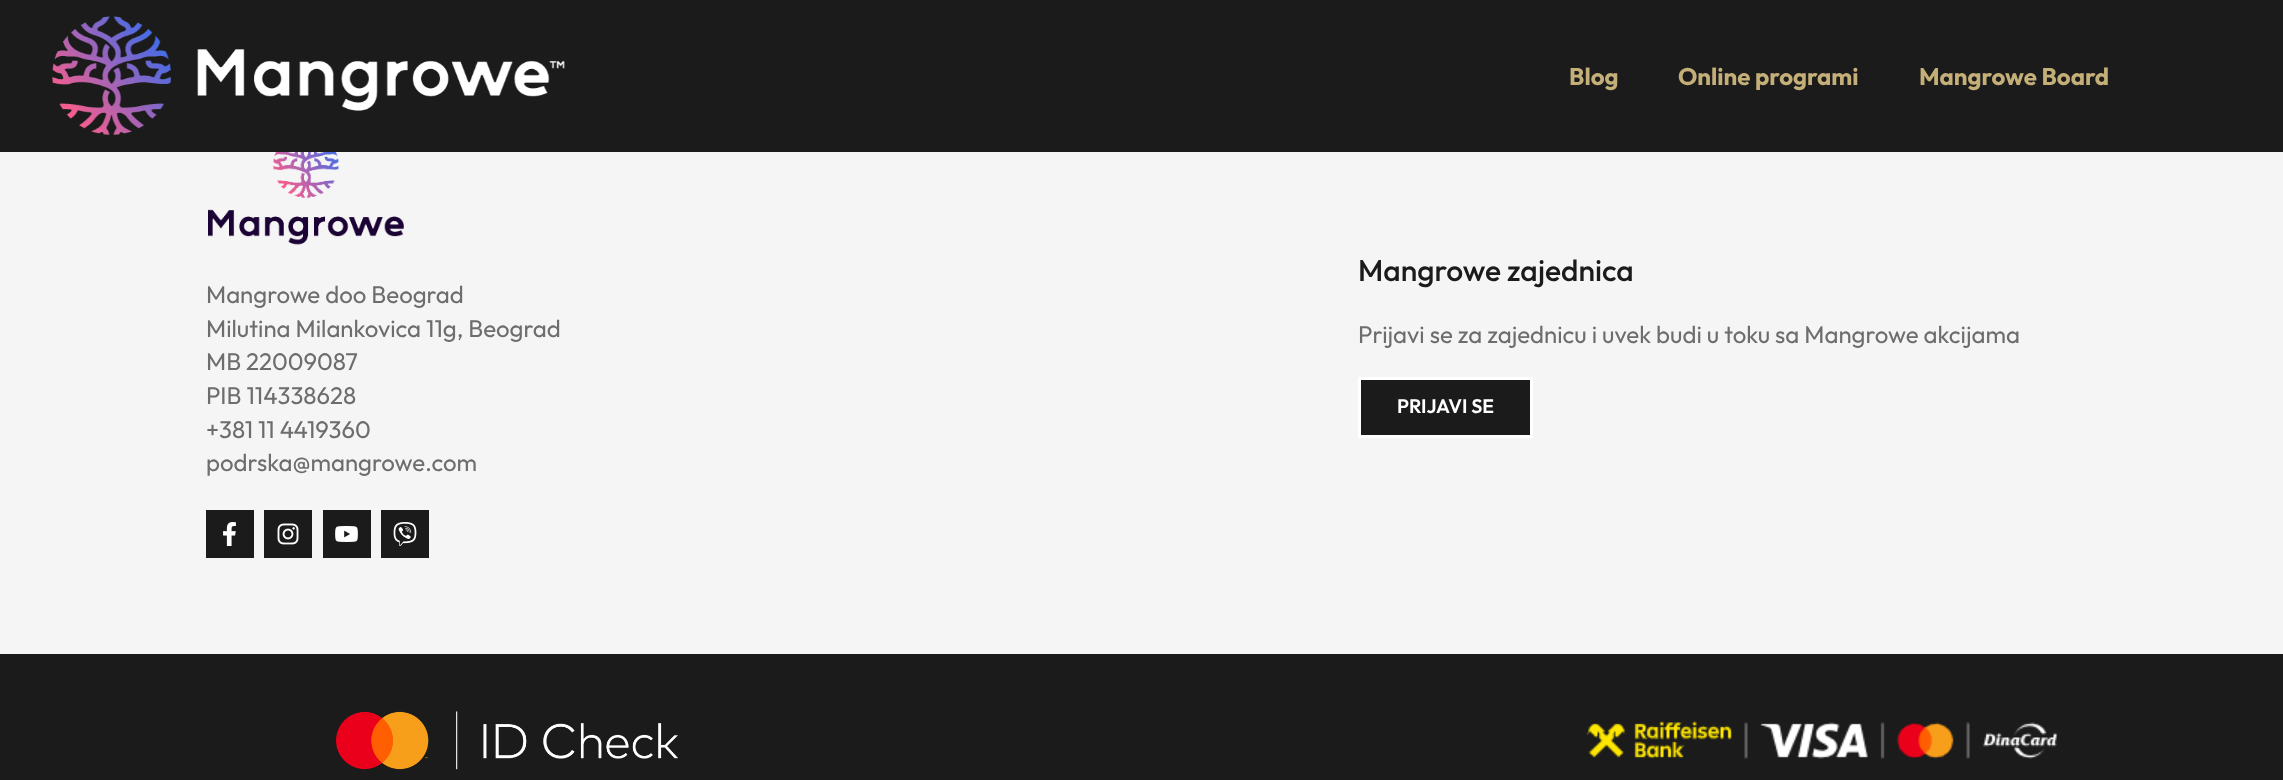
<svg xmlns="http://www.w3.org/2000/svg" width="2283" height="780">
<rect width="100%" height="100%" fill="#f5f5f5"/>
<rect width="2283" height="152" fill="#1b1b1b"/>
<image x="52" y="16" width="513" height="119" href="media/1.png"/>
<text x="1569" y="85" style="font-family:Outfit;font-size:24px;font-weight:bold;fill:#c4af78">Blog</text>
<text x="1678" y="85" style="font-family:Outfit;font-size:24px;font-weight:bold;fill:#c4af78">Online programi</text>
<text x="1919" y="85" style="font-family:Outfit;font-size:24px;font-weight:bold;fill:#c4af78">Mangrowe Board</text>
<image x="208" y="152" width="196" height="93" href="media/2.png"/>
<text x="206" y="303" style="font-family:Outfit;font-size:24px;fill:#6d6d6d">Mangrowe doo Beograd</text>
<text x="206" y="337" style="font-family:Outfit;font-size:24px;fill:#6d6d6d">Milutina Milankovica 11g, Beograd</text>
<text x="206" y="370" style="font-family:Outfit;font-size:24px;fill:#6d6d6d">MB 22009087</text>
<text x="206" y="404" style="font-family:Outfit;font-size:24px;fill:#6d6d6d">PIB 114338628</text>
<text x="206" y="438" style="font-family:Outfit;font-size:24px;fill:#6d6d6d">+381 11 4419360</text>
<text x="206" y="471" style="font-family:Outfit;font-size:24px;fill:#6d6d6d">podrska@mangrowe.com</text>
<rect x="206" y="510" width="48" height="48" fill="#1b1b1b"/>
<image x="223" y="522" width="13" height="24" href="media/3.png"/>
<rect x="264" y="510" width="48" height="48" fill="#1b1b1b"/>
<image x="277" y="523" width="22" height="22" href="media/4.png"/>
<rect x="323" y="510" width="48" height="48" fill="#1b1b1b"/>
<image x="335" y="526" width="23" height="16" href="media/5.png"/>
<rect x="381" y="510" width="48" height="48" fill="#1b1b1b"/>
<image x="393" y="522" width="24" height="24" href="media/6.png"/>
<text x="1358" y="281" style="font-family:Outfit;font-size:30px;font-weight:500;fill:#1b1b1b">Mangrowe zajednica</text>
<text x="1358" y="343" style="font-family:Outfit;font-size:24px;fill:#6d6d6d">Prijavi se za zajednicu i uvek budi u toku sa Mangrowe akcijama</text>
<rect x="1359.5" y="378.5" width="172" height="58" fill="#1b1b1b" stroke="#fff" stroke-width="3"/>
<text x="1397" y="413" style="font-family:Outfit;font-size:19.5px;font-weight:600;fill:#fff">PRIJAVI SE</text>
<rect y="654" width="2283" height="126" fill="#1b1b1b"/>
<image x="335" y="711" width="343" height="59" href="media/7.png"/>
<image x="1586" y="721" width="472" height="38" href="media/8.png"/>
</svg>
